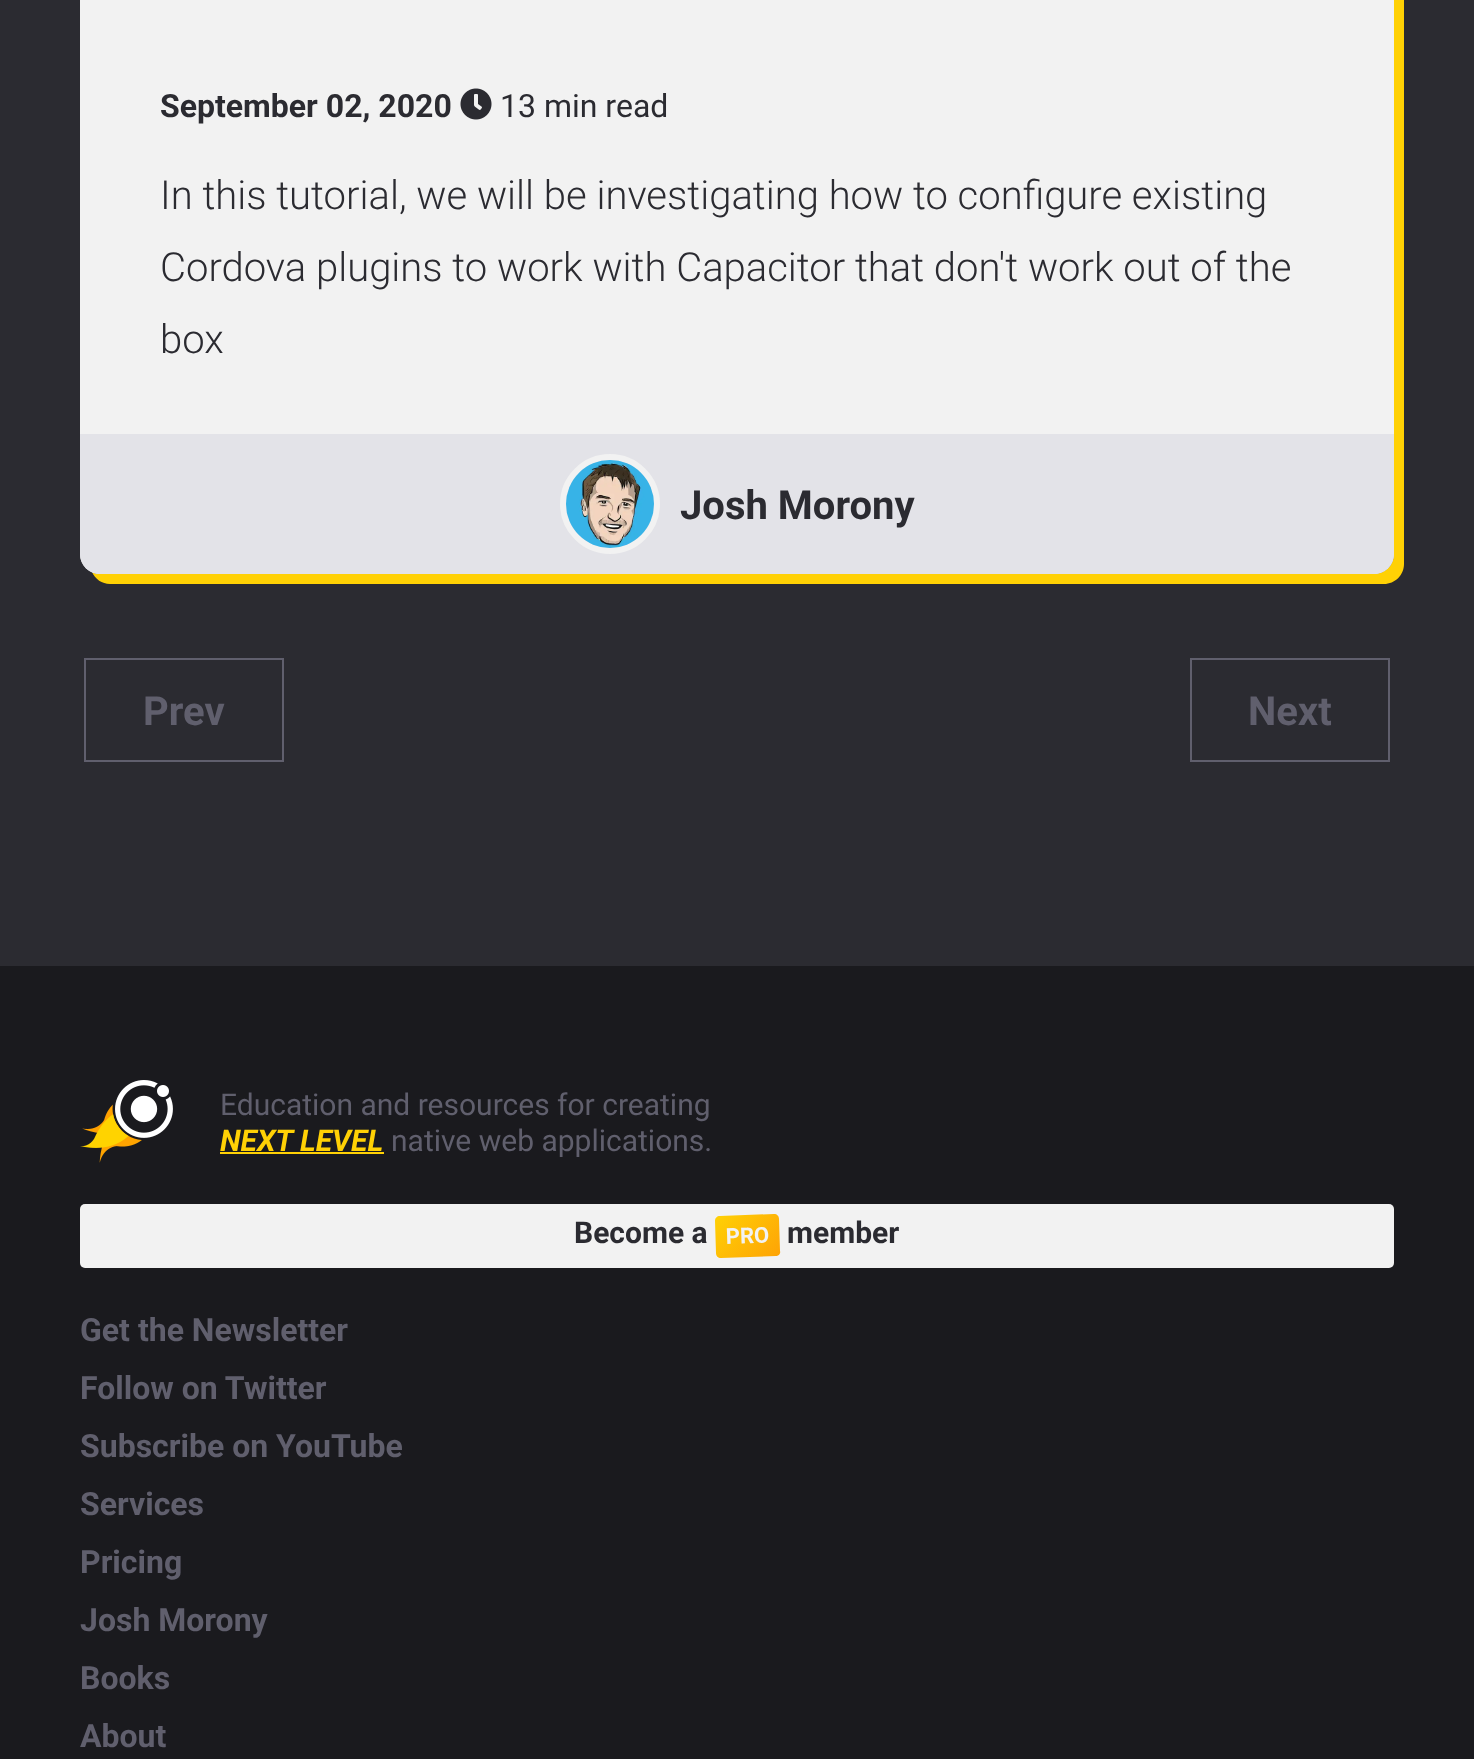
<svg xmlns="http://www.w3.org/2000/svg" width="1474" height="1759">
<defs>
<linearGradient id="g1" gradientUnits="userSpaceOnUse" x1="720" y1="1210" x2="775" y2="1262"><stop offset="0" stop-color="#ffd105"/><stop offset="1" stop-color="#fea306"/></linearGradient>
</defs>
<rect width="100%" height="100%" fill="#2b2b31"/>
<path d="M92 572c3 7 10 12 18 12h1274c11 0 20-9 20-20v-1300c0-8-5-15-12-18c1 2 2 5 2 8v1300c0 11-9 20-20 20h-1274c-3 0-6-1-8-2z" fill="#ffd105"/>
<rect x="80" y="-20" width="1314" height="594" rx="20" fill="#f2f2f2"/>
<text x="160" y="117" style="font-family:Roboto;font-size:32px;font-weight:bold;fill:#2b2b31">September 02, 2020</text>
<image x="460" y="88" width="32" height="32" href="media/1.png"/>
<text x="500" y="117" style="font-family:Roboto;font-size:32px;fill:#2b2b31">13 min read</text>
<text x="160" y="209" style="font-family:Roboto;font-size:40px;font-weight:300;fill:#2b2b31">In this tutorial, we will be investigating how to configure existing</text>
<text x="160" y="281" style="font-family:Roboto;font-size:40px;font-weight:300;fill:#2b2b31">Cordova plugins to work with Capacitor that don't work out of the</text>
<text x="160" y="353" style="font-family:Roboto;font-size:40px;font-weight:300;fill:#2b2b31">box</text>
<path d="M80 434h1314v120c0 11-9 20-20 20h-1274c-11 0-20-9-20-20z" fill="#e3e3e8"/>
<circle cx="610" cy="504" r="47" fill="none" stroke="#f2f2f2" stroke-width="6"/>
<image x="566" y="460" width="88" height="88" href="media/2.png"/>
<text x="680" y="519" style="font-family:Roboto;font-size:40px;font-weight:bold;fill:#2b2b31">Josh Morony</text>
<rect x="85" y="659" width="198" height="102" fill="none" stroke="#605f6d" stroke-width="2"/>
<text x="143" y="725" style="font-family:Roboto;font-size:40px;font-weight:bold;fill:#605f6d">Prev</text>
<rect x="1191" y="659" width="198" height="102" fill="none" stroke="#605f6d" stroke-width="2"/>
<text x="1248" y="725" style="font-family:Roboto;font-size:40px;font-weight:bold;fill:#605f6d">Next</text>
<rect y="966" width="1474" height="793" fill="#1a1a1e"/>
<image x="80" y="1080" width="93" height="83" href="media/3.png"/>
<text x="220" y="1115" style="font-family:Roboto;font-size:30px;fill:#605f6d">Education and resources for creating</text>
<text x="220" y="1151" style="font-family:Roboto;font-size:30px;font-weight:bold;font-style:italic;fill:#ffd105">NEXT LEVEL</text>
<rect x="220" y="1152" width="164" height="2" fill="#ffd105"/>
<text x="391" y="1151" style="font-family:Roboto;font-size:30px;fill:#605f6d">native web applications.</text>
<rect x="80" y="1204" width="1314" height="64" rx="5" fill="#f2f2f2"/>
<text x="574" y="1243" style="font-family:Roboto;font-size:30px;font-weight:bold;fill:#2b2b31">Become a</text>
<path d="M720 1216l54-2c3 0 5 2 5 5l1 32c1 3-2 5-4 5l-55 2c-3 0-5-2-5-5l-1-32c0-3 2-5 5-5z" fill="url(#g1)"/>
<text x="726" y="1244" transform="rotate(-2 726 1244)" style="font-family:Roboto;font-size:22px;font-weight:bold;fill:#f2f2f2">PRO</text>
<text x="787" y="1243" style="font-family:Roboto;font-size:30px;font-weight:bold;fill:#2b2b31">member</text>
<text x="80" y="1341" style="font-family:Roboto;font-size:32px;font-weight:bold;fill:#605f6d">Get the Newsletter</text>
<text x="80" y="1399" style="font-family:Roboto;font-size:32px;font-weight:bold;fill:#605f6d">Follow on Twitter</text>
<text x="80" y="1457" style="font-family:Roboto;font-size:32px;font-weight:bold;fill:#605f6d">Subscribe on YouTube</text>
<text x="80" y="1515" style="font-family:Roboto;font-size:32px;font-weight:bold;fill:#605f6d">Services</text>
<text x="80" y="1573" style="font-family:Roboto;font-size:32px;font-weight:bold;fill:#605f6d">Pricing</text>
<text x="80" y="1631" style="font-family:Roboto;font-size:32px;font-weight:bold;fill:#605f6d">Josh Morony</text>
<text x="80" y="1689" style="font-family:Roboto;font-size:32px;font-weight:bold;fill:#605f6d">Books</text>
<text x="80" y="1747" style="font-family:Roboto;font-size:32px;font-weight:bold;fill:#605f6d">About</text>
</svg>
